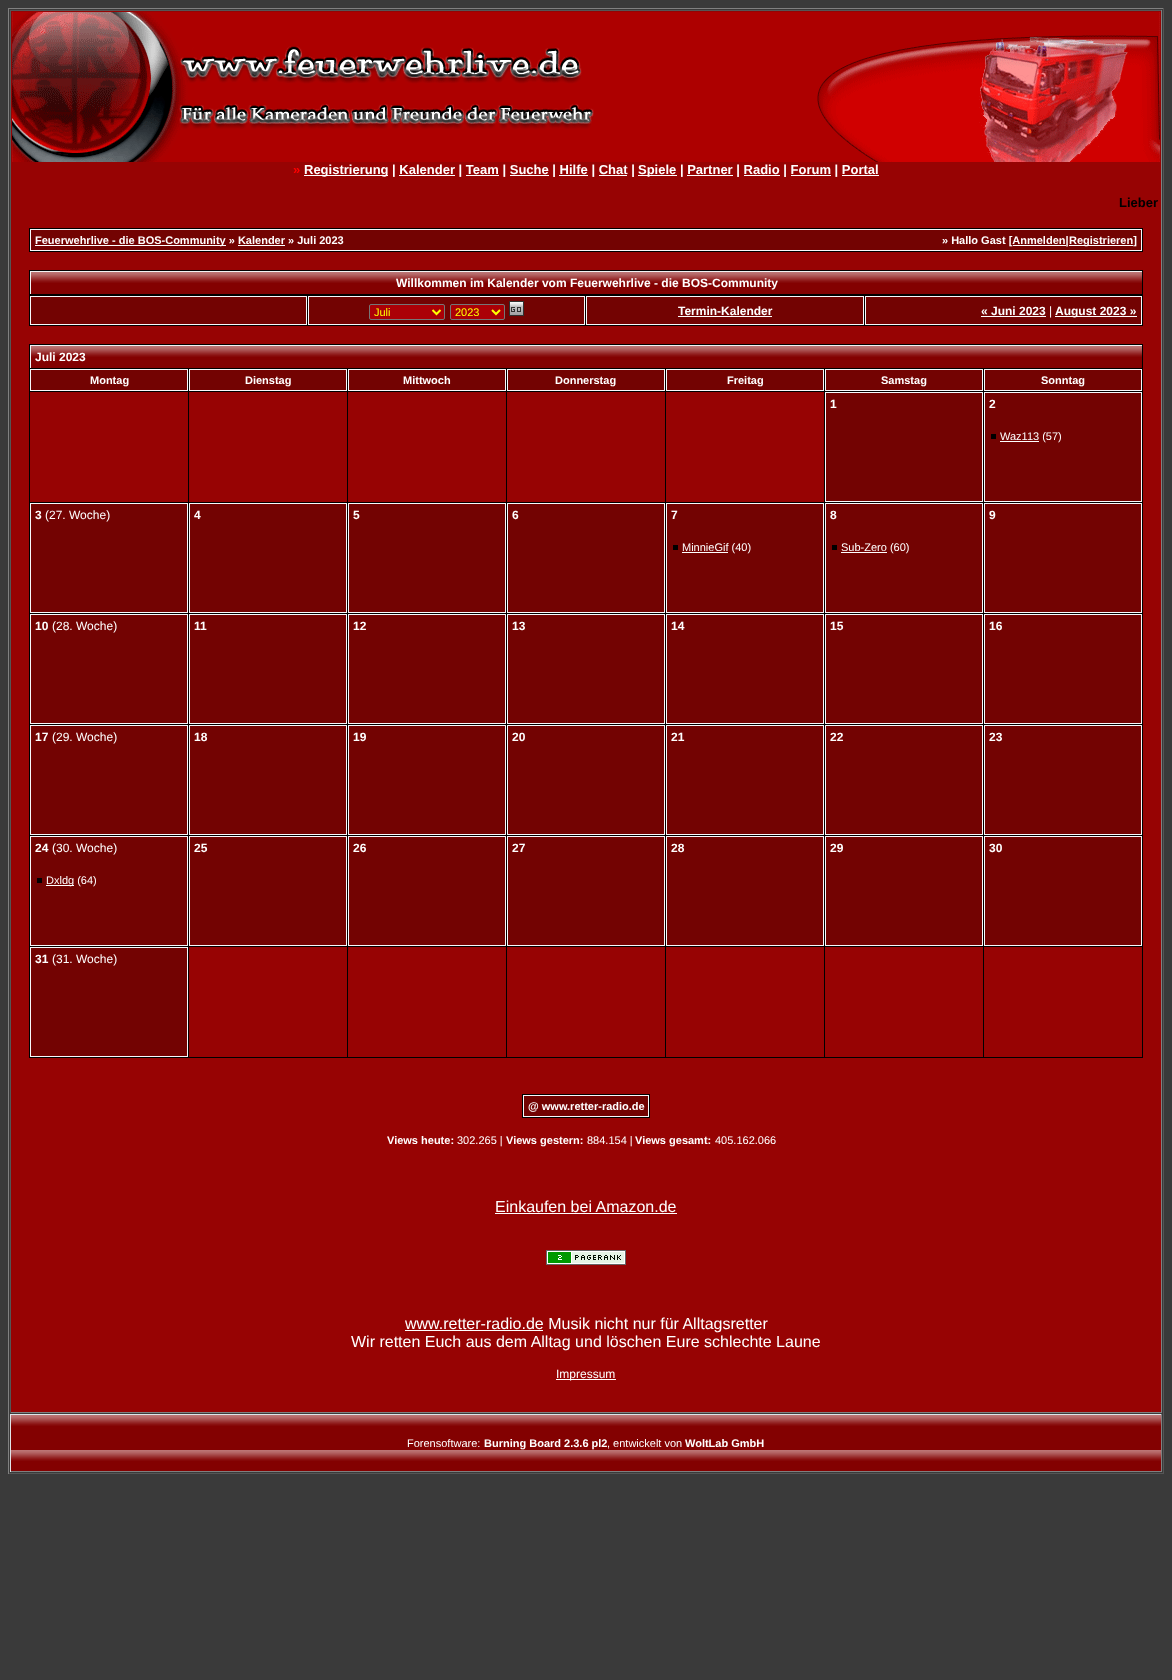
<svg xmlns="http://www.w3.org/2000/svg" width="1172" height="1680">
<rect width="100%" height="100%" fill="#3a3a3a"/>
<rect x="8" y="8" width="1156" height="1" fill="#808080"/>
<rect x="1163" y="8" width="1" height="1466" fill="#555"/>
<rect x="8" y="1473" width="1156" height="1" fill="#555"/>
<rect x="8" y="8" width="1" height="1466" fill="#808080"/>
<rect x="11" y="11" width="1150" height="1401" fill="#970303"/>
<rect x="10" y="10" width="1152" height="1" fill="#555"/>
<rect x="1161" y="10" width="1" height="1403" fill="#808080"/>
<rect x="10" y="1412" width="1152" height="1" fill="#808080"/>
<rect x="10" y="10" width="1" height="1403" fill="#555"/>
<rect x="594" y="12" width="211" height="150" fill="#ad0000"/>
<image x="12" y="12" width="582" height="150" href="media/1.png"/>
<image x="805" y="12" width="355" height="150" href="media/2.png"/>
<text x="293" y="174" style="font-family:Liberation Sans;font-size:13px;font-weight:bold;fill:#f00">»</text>
<rect x="304" y="175" width="84" height="1" fill="#fff"/>
<text x="304" y="174" style="font-family:Liberation Sans;font-size:13px;font-weight:bold;fill:#fff">Registrierung | Kalender | Team | Suche | Hilfe | Chat |</text>
<rect x="399" y="175" width="56" height="1" fill="#fff"/>
<rect x="466" y="175" width="33" height="1" fill="#fff"/>
<rect x="510" y="175" width="39" height="1" fill="#fff"/>
<rect x="559" y="175" width="29" height="1" fill="#fff"/>
<rect x="599" y="175" width="28" height="1" fill="#fff"/>
<rect x="638" y="175" width="39" height="1" fill="#fff"/>
<text x="638" y="174" style="font-family:Liberation Sans;font-size:13px;font-weight:bold;fill:#fff">Spiele | Partner | Radio | Forum | Portal</text>
<rect x="687" y="175" width="46" height="1" fill="#fff"/>
<rect x="744" y="175" width="36" height="1" fill="#fff"/>
<rect x="791" y="175" width="40" height="1" fill="#fff"/>
<rect x="842" y="175" width="37" height="1" fill="#fff"/>
<text x="1119" y="207" style="font-family:Liberation Sans;font-size:13px;font-weight:bold;fill:#000101">Lieber</text>
<rect x="29" y="228" width="1114" height="24" fill="#000"/>
<rect x="30.5" y="229.5" width="1111" height="21" fill="#730302" stroke="#f8f9fb"/>
<rect x="35" y="245" width="191" height="1" fill="#fff"/>
<text x="35" y="244" style="font-family:Liberation Sans;font-size:11px;font-weight:bold;fill:#fff">Feuerwehrlive - die BOS-Community » Kalender » Juli 2023</text>
<rect x="238" y="245" width="47" height="1" fill="#fff"/>
<text x="942" y="244" style="font-family:Liberation Sans;font-size:11px;font-weight:bold;fill:#fff">» Hallo Gast [Anmelden|</text>
<rect x="1013" y="245" width="53" height="1" fill="#fff"/>
<rect x="1069" y="245" width="64" height="1" fill="#fff"/>
<text x="1069" y="244" style="font-family:Liberation Sans;font-size:11px;font-weight:bold;fill:#fff">Registrieren]</text>
<rect x="29" y="270" width="1114" height="56" fill="#000"/>
<image x="31" y="272" width="1111" height="22" href="media/3.png"/>
<rect x="30" y="271" width="1112" height="1" fill="#f2f3f5"/>
<rect x="30" y="271" width="1" height="23" fill="#f2f3f5"/>
<text x="396" y="287" style="font-family:Liberation Sans;font-size:12px;font-weight:bold;fill:#fff">Willkommen im Kalender vom Feuerwehrlive - die BOS-Community</text>
<rect x="30.5" y="296.5" width="276" height="28" fill="#730302" stroke="#f8f9fb"/>
<rect x="308.5" y="296.5" width="276" height="28" fill="#730302" stroke="#f8f9fb"/>
<rect x="369.5" y="304.5" width="75" height="15" rx="1.5" fill="#ab0006" stroke="#767676"/>
<path d="M432.5 310l4 4l4-4" fill="none" stroke="#ff0" stroke-width="2"/>
<text x="374" y="316" style="font-family:Liberation Sans;font-size:11px;fill:#ff0">Juli</text>
<rect x="450.5" y="304.5" width="54" height="15" rx="1.5" fill="#ab0006" stroke="#767676"/>
<path d="M492 310l4 4l4-4" fill="none" stroke="#ff0" stroke-width="2"/>
<text x="455" y="316" style="font-family:Liberation Sans;font-size:11px;fill:#ff0">2023</text>
<image x="509" y="301" width="15" height="15" href="media/4.png"/>
<rect x="586.5" y="296.5" width="277" height="28" fill="#730302" stroke="#f8f9fb"/>
<text x="678" y="315" style="font-family:Liberation Sans;font-size:12px;font-weight:bold;fill:#fff">Termin-Kalender</text>
<rect x="678" y="316" width="94" height="1" fill="#fff"/>
<rect x="865.5" y="296.5" width="276" height="28" fill="#730302" stroke="#f8f9fb"/>
<text x="981" y="315" style="font-family:Liberation Sans;font-size:12px;font-weight:bold;fill:#fff">« Juni 2023</text>
<rect x="981" y="316" width="65" height="1" fill="#fff"/>
<text x="1049" y="315" style="font-family:Liberation Sans;font-size:12px;fill:#fff">|</text>
<rect x="1055" y="316" width="82" height="1" fill="#fff"/>
<text x="1055" y="315" style="font-family:Liberation Sans;font-size:12px;font-weight:bold;fill:#fff">August 2023 »</text>
<rect x="29" y="344" width="1114" height="714" fill="#000"/>
<image x="31" y="346" width="1111" height="22" href="media/3.png"/>
<rect x="30" y="345" width="1112" height="1" fill="#f2f3f5"/>
<rect x="30" y="345" width="1" height="23" fill="#f2f3f5"/>
<text x="35" y="361" style="font-family:Liberation Sans;font-size:12px;font-weight:bold;fill:#fff">Juli 2023</text>
<rect x="30.5" y="369.5" width="157" height="21" fill="#730302" stroke="#f8f9fb"/>
<text x="90" y="384" style="font-family:Liberation Sans;font-size:11px;font-weight:bold;fill:#fff">Montag</text>
<rect x="189.5" y="369.5" width="157" height="21" fill="#730302" stroke="#f8f9fb"/>
<text x="245" y="384" style="font-family:Liberation Sans;font-size:11px;font-weight:bold;fill:#fff">Dienstag</text>
<rect x="348.5" y="369.5" width="157" height="21" fill="#730302" stroke="#f8f9fb"/>
<text x="403" y="384" style="font-family:Liberation Sans;font-size:11px;font-weight:bold;fill:#fff">Mittwoch</text>
<rect x="507.5" y="369.5" width="157" height="21" fill="#730302" stroke="#f8f9fb"/>
<text x="555" y="384" style="font-family:Liberation Sans;font-size:11px;font-weight:bold;fill:#fff">Donnerstag</text>
<rect x="666.5" y="369.5" width="157" height="21" fill="#730302" stroke="#f8f9fb"/>
<text x="727" y="384" style="font-family:Liberation Sans;font-size:11px;font-weight:bold;fill:#fff">Freitag</text>
<rect x="825.5" y="369.5" width="157" height="21" fill="#730302" stroke="#f8f9fb"/>
<text x="881" y="384" style="font-family:Liberation Sans;font-size:11px;font-weight:bold;fill:#fff">Samstag</text>
<rect x="984.5" y="369.5" width="157" height="21" fill="#730302" stroke="#f8f9fb"/>
<text x="1041" y="384" style="font-family:Liberation Sans;font-size:11px;font-weight:bold;fill:#fff">Sonntag</text>
<rect x="30" y="392" width="158" height="110" fill="#970303"/>
<rect x="189" y="392" width="158" height="110" fill="#970303"/>
<rect x="348" y="392" width="158" height="110" fill="#970303"/>
<rect x="507" y="392" width="158" height="110" fill="#970303"/>
<rect x="666" y="392" width="158" height="110" fill="#970303"/>
<rect x="825.5" y="392.5" width="157" height="109" fill="#730302" stroke="#f8f9fb"/>
<text x="830" y="408" style="font-family:Liberation Sans;font-size:12px;font-weight:bold;fill:#fff">1</text>
<rect x="984.5" y="392.5" width="157" height="109" fill="#730302" stroke="#f8f9fb"/>
<text x="989" y="408" style="font-family:Liberation Sans;font-size:12px;font-weight:bold;fill:#fff">2</text>
<rect x="991" y="434" width="5" height="5" fill="#000"/>
<rect x="1000" y="441" width="39" height="1" fill="#fff"/>
<text x="1000" y="440" style="font-family:Liberation Sans;font-size:11px;fill:#fff">Waz113 (57)</text>
<rect x="30.5" y="503.5" width="157" height="109" fill="#730302" stroke="#f8f9fb"/>
<text x="35" y="519" style="font-family:Liberation Sans;font-size:12px;font-weight:bold;fill:#fff">3</text>
<text x="45" y="519" style="font-family:Liberation Sans;font-size:12px;fill:#fff">(27. Woche)</text>
<rect x="189.5" y="503.5" width="157" height="109" fill="#730302" stroke="#f8f9fb"/>
<text x="194" y="519" style="font-family:Liberation Sans;font-size:12px;font-weight:bold;fill:#fff">4</text>
<rect x="348.5" y="503.5" width="157" height="109" fill="#730302" stroke="#f8f9fb"/>
<text x="353" y="519" style="font-family:Liberation Sans;font-size:12px;font-weight:bold;fill:#fff">5</text>
<rect x="507.5" y="503.5" width="157" height="109" fill="#730302" stroke="#f8f9fb"/>
<text x="512" y="519" style="font-family:Liberation Sans;font-size:12px;font-weight:bold;fill:#fff">6</text>
<rect x="666.5" y="503.5" width="157" height="109" fill="#730302" stroke="#f8f9fb"/>
<text x="671" y="519" style="font-family:Liberation Sans;font-size:12px;font-weight:bold;fill:#fff">7</text>
<rect x="673" y="545" width="5" height="5" fill="#000"/>
<rect x="682" y="552" width="46" height="1" fill="#fff"/>
<text x="682" y="551" style="font-family:Liberation Sans;font-size:11px;fill:#fff">MinnieGif (40)</text>
<rect x="825.5" y="503.5" width="157" height="109" fill="#730302" stroke="#f8f9fb"/>
<text x="830" y="519" style="font-family:Liberation Sans;font-size:12px;font-weight:bold;fill:#fff">8</text>
<rect x="832" y="545" width="5" height="5" fill="#000"/>
<rect x="841" y="552" width="46" height="1" fill="#fff"/>
<text x="841" y="551" style="font-family:Liberation Sans;font-size:11px;fill:#fff">Sub-Zero (60)</text>
<rect x="984.5" y="503.5" width="157" height="109" fill="#730302" stroke="#f8f9fb"/>
<text x="989" y="519" style="font-family:Liberation Sans;font-size:12px;font-weight:bold;fill:#fff">9</text>
<rect x="30.5" y="614.5" width="157" height="109" fill="#730302" stroke="#f8f9fb"/>
<text x="35" y="630" style="font-family:Liberation Sans;font-size:12px;font-weight:bold;fill:#fff">10</text>
<text x="52" y="630" style="font-family:Liberation Sans;font-size:12px;fill:#fff">(28. Woche)</text>
<rect x="189.5" y="614.5" width="157" height="109" fill="#730302" stroke="#f8f9fb"/>
<text x="194" y="630" style="font-family:Liberation Sans;font-size:12px;font-weight:bold;fill:#fff">11</text>
<rect x="348.5" y="614.5" width="157" height="109" fill="#730302" stroke="#f8f9fb"/>
<text x="353" y="630" style="font-family:Liberation Sans;font-size:12px;font-weight:bold;fill:#fff">12</text>
<rect x="507.5" y="614.5" width="157" height="109" fill="#730302" stroke="#f8f9fb"/>
<text x="512" y="630" style="font-family:Liberation Sans;font-size:12px;font-weight:bold;fill:#fff">13</text>
<rect x="666.5" y="614.5" width="157" height="109" fill="#730302" stroke="#f8f9fb"/>
<text x="671" y="630" style="font-family:Liberation Sans;font-size:12px;font-weight:bold;fill:#fff">14</text>
<rect x="825.5" y="614.5" width="157" height="109" fill="#730302" stroke="#f8f9fb"/>
<text x="830" y="630" style="font-family:Liberation Sans;font-size:12px;font-weight:bold;fill:#fff">15</text>
<rect x="984.5" y="614.5" width="157" height="109" fill="#730302" stroke="#f8f9fb"/>
<text x="989" y="630" style="font-family:Liberation Sans;font-size:12px;font-weight:bold;fill:#fff">16</text>
<rect x="30.5" y="725.5" width="157" height="109" fill="#730302" stroke="#f8f9fb"/>
<text x="35" y="741" style="font-family:Liberation Sans;font-size:12px;font-weight:bold;fill:#fff">17</text>
<text x="52" y="741" style="font-family:Liberation Sans;font-size:12px;fill:#fff">(29. Woche)</text>
<rect x="189.5" y="725.5" width="157" height="109" fill="#730302" stroke="#f8f9fb"/>
<text x="194" y="741" style="font-family:Liberation Sans;font-size:12px;font-weight:bold;fill:#fff">18</text>
<rect x="348.5" y="725.5" width="157" height="109" fill="#730302" stroke="#f8f9fb"/>
<text x="353" y="741" style="font-family:Liberation Sans;font-size:12px;font-weight:bold;fill:#fff">19</text>
<rect x="507.5" y="725.5" width="157" height="109" fill="#730302" stroke="#f8f9fb"/>
<text x="512" y="741" style="font-family:Liberation Sans;font-size:12px;font-weight:bold;fill:#fff">20</text>
<rect x="666.5" y="725.5" width="157" height="109" fill="#730302" stroke="#f8f9fb"/>
<text x="671" y="741" style="font-family:Liberation Sans;font-size:12px;font-weight:bold;fill:#fff">21</text>
<rect x="825.5" y="725.5" width="157" height="109" fill="#730302" stroke="#f8f9fb"/>
<text x="830" y="741" style="font-family:Liberation Sans;font-size:12px;font-weight:bold;fill:#fff">22</text>
<rect x="984.5" y="725.5" width="157" height="109" fill="#730302" stroke="#f8f9fb"/>
<text x="989" y="741" style="font-family:Liberation Sans;font-size:12px;font-weight:bold;fill:#fff">23</text>
<rect x="30.5" y="836.5" width="157" height="109" fill="#730302" stroke="#f8f9fb"/>
<text x="35" y="852" style="font-family:Liberation Sans;font-size:12px;font-weight:bold;fill:#fff">24</text>
<text x="52" y="852" style="font-family:Liberation Sans;font-size:12px;fill:#fff">(30. Woche)</text>
<rect x="37" y="878" width="5" height="5" fill="#000"/>
<rect x="46" y="885" width="28" height="1" fill="#fff"/>
<text x="46" y="884" style="font-family:Liberation Sans;font-size:11px;fill:#fff">Dxldg (64)</text>
<rect x="189.5" y="836.5" width="157" height="109" fill="#730302" stroke="#f8f9fb"/>
<text x="194" y="852" style="font-family:Liberation Sans;font-size:12px;font-weight:bold;fill:#fff">25</text>
<rect x="348.5" y="836.5" width="157" height="109" fill="#730302" stroke="#f8f9fb"/>
<text x="353" y="852" style="font-family:Liberation Sans;font-size:12px;font-weight:bold;fill:#fff">26</text>
<rect x="507.5" y="836.5" width="157" height="109" fill="#730302" stroke="#f8f9fb"/>
<text x="512" y="852" style="font-family:Liberation Sans;font-size:12px;font-weight:bold;fill:#fff">27</text>
<rect x="666.5" y="836.5" width="157" height="109" fill="#730302" stroke="#f8f9fb"/>
<text x="671" y="852" style="font-family:Liberation Sans;font-size:12px;font-weight:bold;fill:#fff">28</text>
<rect x="825.5" y="836.5" width="157" height="109" fill="#730302" stroke="#f8f9fb"/>
<text x="830" y="852" style="font-family:Liberation Sans;font-size:12px;font-weight:bold;fill:#fff">29</text>
<rect x="984.5" y="836.5" width="157" height="109" fill="#730302" stroke="#f8f9fb"/>
<text x="989" y="852" style="font-family:Liberation Sans;font-size:12px;font-weight:bold;fill:#fff">30</text>
<rect x="30.5" y="947.5" width="157" height="109" fill="#730302" stroke="#f8f9fb"/>
<text x="35" y="963" style="font-family:Liberation Sans;font-size:12px;font-weight:bold;fill:#fff">31</text>
<text x="52" y="963" style="font-family:Liberation Sans;font-size:12px;fill:#fff">(31. Woche)</text>
<rect x="189" y="947" width="158" height="110" fill="#970303"/>
<rect x="348" y="947" width="158" height="110" fill="#970303"/>
<rect x="507" y="947" width="158" height="110" fill="#970303"/>
<rect x="666" y="947" width="158" height="110" fill="#970303"/>
<rect x="825" y="947" width="158" height="110" fill="#970303"/>
<rect x="984" y="947" width="158" height="110" fill="#970303"/>
<rect x="522" y="1094" width="128" height="24" fill="#000"/>
<rect x="523.5" y="1095.5" width="125" height="21" fill="#730302" stroke="#f8f9fb"/>
<text x="528" y="1110" style="font-family:Liberation Sans;font-size:11px;font-weight:bold;fill:#fff">@ www.retter-radio.de</text>
<text x="387" y="1144" style="font-family:Liberation Sans;font-size:11px;font-weight:bold;fill:#fff">Views heute:</text>
<text x="457" y="1144" style="font-family:Liberation Sans;font-size:11px;fill:#fff">302.265 |</text>
<text x="506" y="1144" style="font-family:Liberation Sans;font-size:11px;font-weight:bold;fill:#fff">Views gestern:</text>
<text x="587" y="1144" style="font-family:Liberation Sans;font-size:11px;fill:#fff">884.154 |</text>
<text x="635" y="1144" style="font-family:Liberation Sans;font-size:11px;font-weight:bold;fill:#fff">Views gesamt:</text>
<text x="715" y="1144" style="font-family:Liberation Sans;font-size:11px;fill:#fff">405.162.066</text>
<text x="495" y="1212" style="font-family:Liberation Sans;font-size:16px;fill:#fff">Einkaufen bei Amazon.de</text>
<rect x="495" y="1213" width="182" height="1" fill="#fff"/>
<image x="546" y="1250" width="80" height="15" href="media/5.png"/>
<rect x="405" y="1330" width="138" height="1" fill="#fff"/>
<text x="405" y="1329" style="font-family:Liberation Sans;font-size:16px;fill:#fff">www.retter-radio.de Musik nicht nur für Alltagsretter</text>
<text x="351" y="1347" style="font-family:Liberation Sans;font-size:16px;fill:#fff">Wir retten Euch aus dem Alltag und löschen Eure schlechte Laune</text>
<rect x="556" y="1379" width="60" height="1" fill="#fff"/>
<text x="556" y="1378" style="font-family:Liberation Sans;font-size:12px;fill:#fff">Impressum</text>
<image x="11" y="1415" width="1150" height="56" href="media/6.png"/>
<rect x="10" y="1414" width="1152" height="1" fill="#e1e4e8"/>
<rect x="1161" y="1414" width="1" height="58" fill="#808080"/>
<rect x="10" y="1471" width="1152" height="1" fill="#808080"/>
<rect x="10" y="1414" width="1" height="58" fill="#e1e4e8"/>
<text x="407" y="1447" style="font-family:Liberation Sans;font-size:11px;fill:#fff">Forensoftware:</text>
<text x="484" y="1447" style="font-family:Liberation Sans;font-size:11px;font-weight:bold;fill:#fff">Burning Board 2.3.6 pl2</text>
<text x="607" y="1447" style="font-family:Liberation Sans;font-size:11px;fill:#fff">, entwickelt von</text>
<text x="685" y="1447" style="font-family:Liberation Sans;font-size:11px;font-weight:bold;fill:#fff">WoltLab GmbH</text>
</svg>
